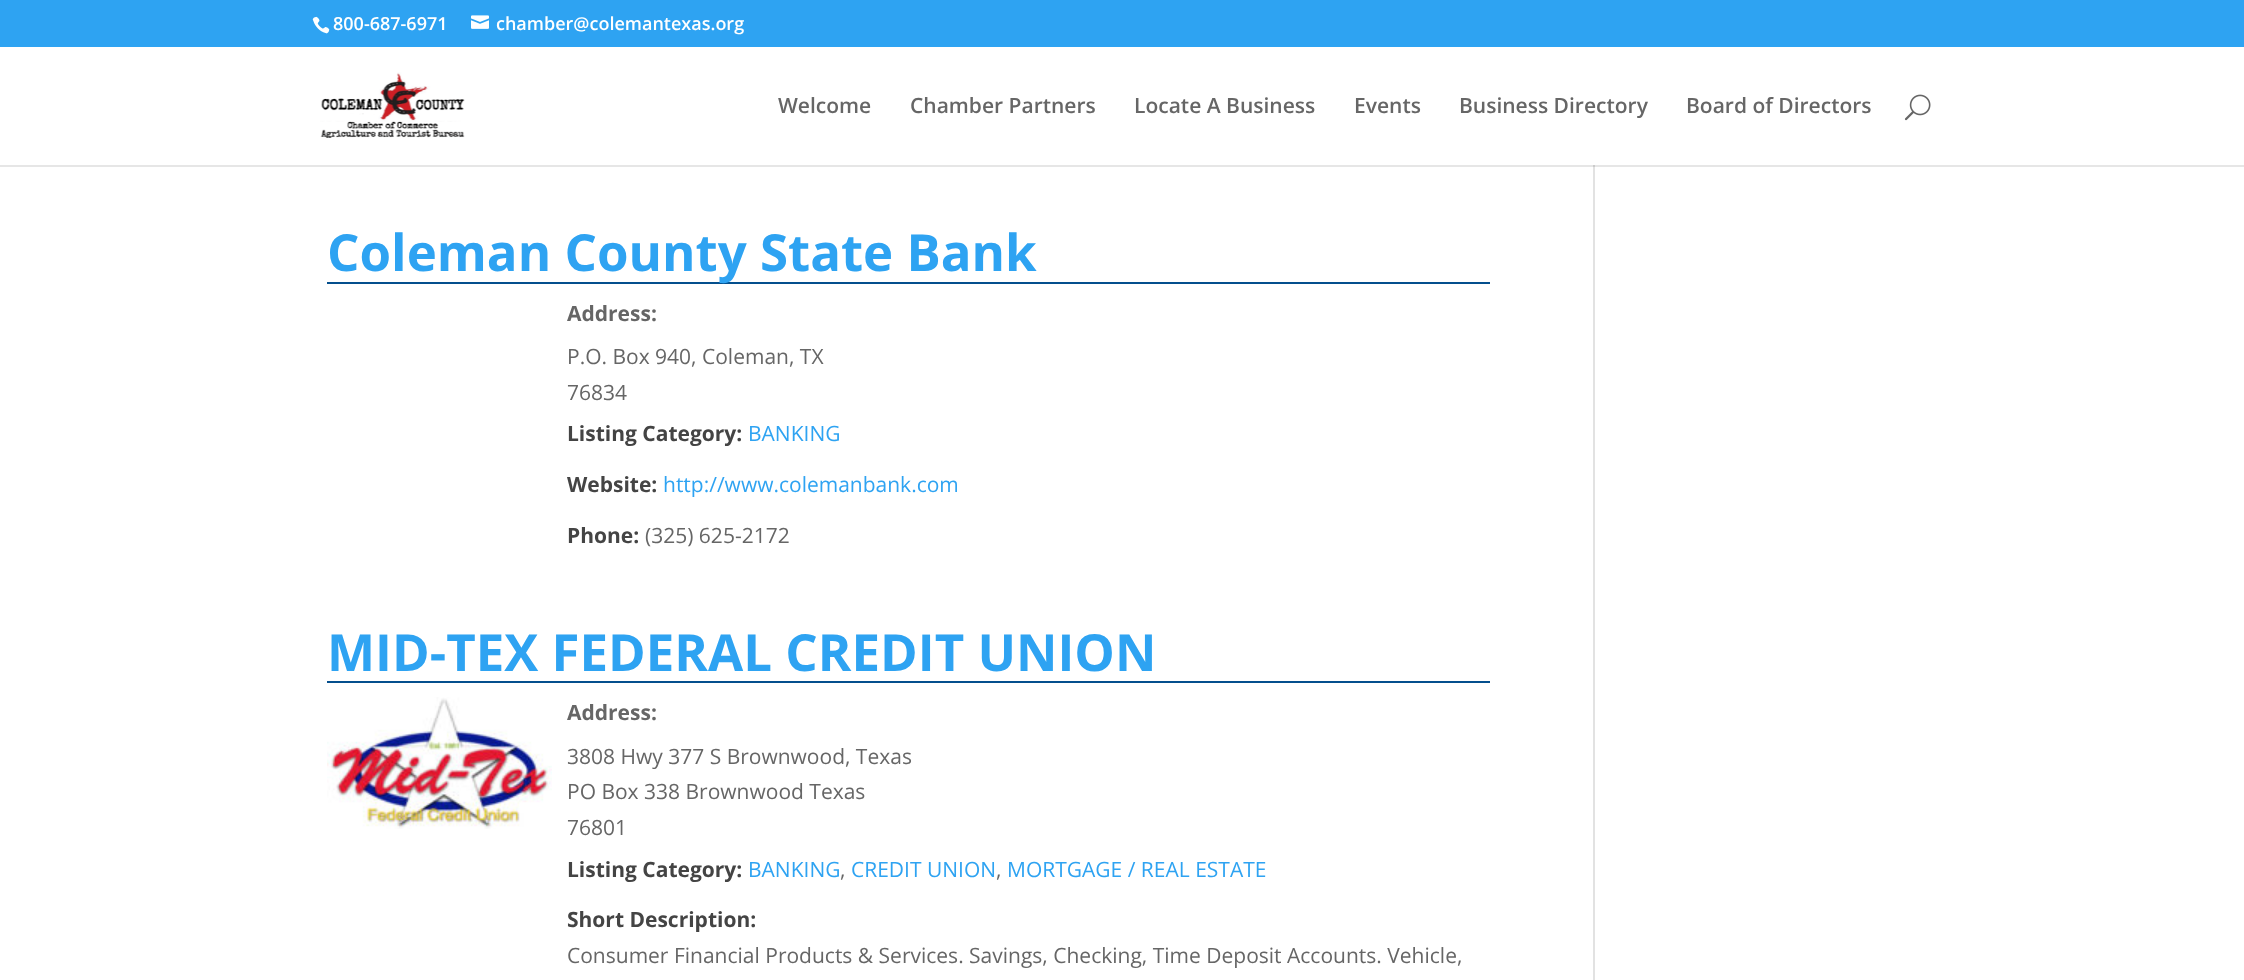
<svg xmlns="http://www.w3.org/2000/svg" width="2244" height="980">
<rect width="100%" height="100%" fill="#fff"/>
<rect y="165" width="2244" height="2" fill="#e6e6e6"/>
<rect width="2244" height="47" fill="#2ea3f2"/>
<image x="312" y="16" width="18" height="18" href="media/1.png"/>
<text x="333" y="30" style="font-family:Open Sans;font-size:18px;font-weight:600;fill:#fff">800-687-6971</text>
<image x="471" y="15" width="18" height="14" href="media/2.png"/>
<text x="496" y="30" style="font-family:Open Sans;font-size:18px;font-weight:600;fill:#fff">chamber@colemantexas.org</text>
<image x="320" y="72" width="145" height="66" href="media/3.png"/>
<text x="778" y="113" style="font-family:Open Sans;font-size:21px;font-weight:600;fill:#666">Welcome</text>
<text x="910" y="113" style="font-family:Open Sans;font-size:21px;font-weight:600;fill:#666">Chamber Partners</text>
<text x="1134" y="113" style="font-family:Open Sans;font-size:21px;font-weight:600;fill:#666">Locate A Business</text>
<text x="1354" y="113" style="font-family:Open Sans;font-size:21px;font-weight:600;fill:#666">Events</text>
<text x="1459" y="113" style="font-family:Open Sans;font-size:21px;font-weight:600;fill:#666">Business Directory</text>
<text x="1686" y="113" style="font-family:Open Sans;font-size:21px;font-weight:600;fill:#666">Board of Directors</text>
<image x="1904" y="94" width="27" height="27" href="media/4.png"/>
<rect x="327" y="282" width="1163" height="2" fill="#044f8d"/>
<text x="327" y="271" style="font-family:Open Sans;font-size:51px;font-weight:bold;fill:#2ea3f2">Coleman County State Bank</text>
<text x="567" y="321" style="font-family:Open Sans;font-size:21px;font-weight:bold;fill:#666">Address:</text>
<text x="567" y="364" style="font-family:Open Sans;font-size:21px;fill:#666">P.O. Box 940, Coleman, TX</text>
<text x="567" y="400" style="font-family:Open Sans;font-size:21px;fill:#666">76834</text>
<text x="567" y="441" style="font-family:Open Sans;font-size:21px;font-weight:bold;fill:#444">Listing Category:</text>
<text x="748" y="441" style="font-family:Open Sans;font-size:21px;fill:#2ea3f2">BANKING</text>
<text x="567" y="492" style="font-family:Open Sans;font-size:21px;font-weight:bold;fill:#444">Website:</text>
<text x="663" y="492" style="font-family:Open Sans;font-size:21px;fill:#2ea3f2">http://www.colemanbank.com</text>
<text x="567" y="543" style="font-family:Open Sans;font-size:21px;font-weight:bold;fill:#444">Phone:</text>
<text x="645" y="543" style="font-family:Open Sans;font-size:21px;fill:#666">(325) 625-2172</text>
<rect x="327" y="681" width="1163" height="2" fill="#044f8d"/>
<text x="327" y="671" style="font-family:Open Sans;font-size:51px;font-weight:bold;fill:#2ea3f2">MID-TEX FEDERAL CREDIT UNION</text>
<image x="327" y="697" width="225" height="132" href="media/5.png"/>
<text x="567" y="720" style="font-family:Open Sans;font-size:21px;font-weight:bold;fill:#666">Address:</text>
<text x="567" y="764" style="font-family:Open Sans;font-size:21px;fill:#666">3808 Hwy 377 S Brownwood, Texas</text>
<text x="567" y="799" style="font-family:Open Sans;font-size:21px;fill:#666">PO Box 338 Brownwood Texas</text>
<text x="567" y="835" style="font-family:Open Sans;font-size:21px;fill:#666">76801</text>
<text x="567" y="877" style="font-family:Open Sans;font-size:21px;font-weight:bold;fill:#444">Listing Category:</text>
<text x="748" y="877" style="font-family:Open Sans;font-size:21px;fill:#2ea3f2">BANKING</text>
<text x="840" y="877" style="font-family:Open Sans;font-size:21px;fill:#666">,</text>
<text x="851" y="877" style="font-family:Open Sans;font-size:21px;fill:#2ea3f2">CREDIT UNION</text>
<text x="996" y="877" style="font-family:Open Sans;font-size:21px;fill:#666">,</text>
<text x="1007" y="877" style="font-family:Open Sans;font-size:21px;fill:#2ea3f2">MORTGAGE / REAL ESTATE</text>
<text x="567" y="927" style="font-family:Open Sans;font-size:21px;font-weight:bold;fill:#444">Short Description:</text>
<text x="567" y="963" style="font-family:Open Sans;font-size:21px;fill:#666">Consumer Financial Products &amp; Services. Savings, Checking, Time Deposit Accounts. Vehicle,</text>
<rect x="1593" y="167" width="2" height="813" fill="#e2e2e2"/>
<rect x="1593" y="165" width="2" height="2" fill="#cbcbcb"/>
</svg>
